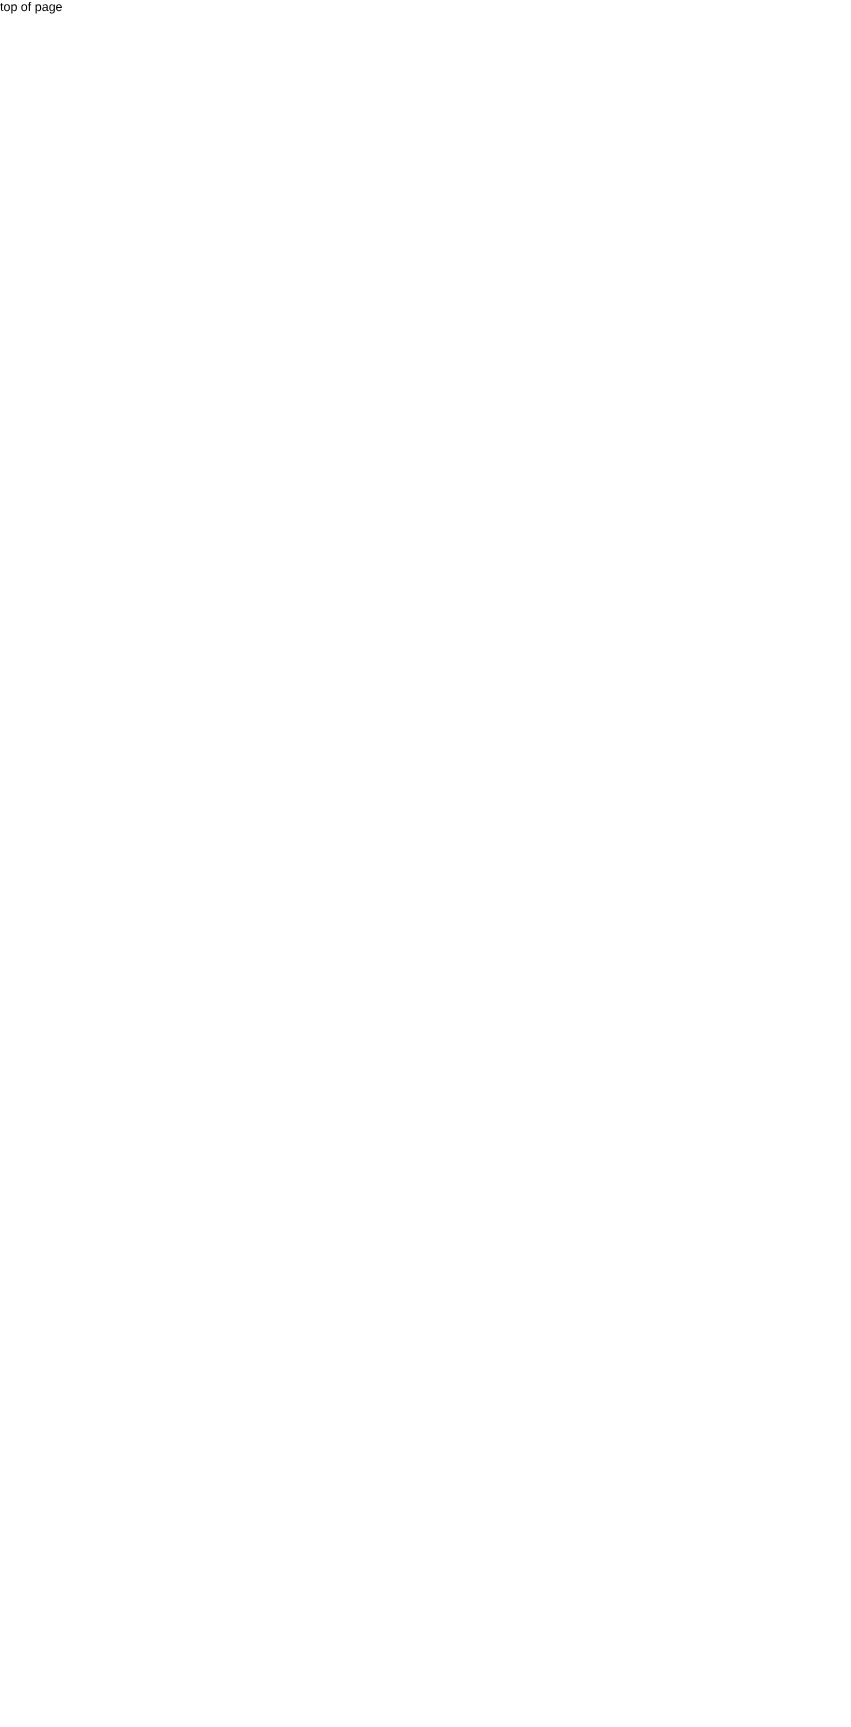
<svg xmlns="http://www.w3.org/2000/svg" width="851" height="1727">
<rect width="100%" height="100%" fill="#fff"/>
<text x="0" y="11" style="font-family:Liberation Sans;font-size:12.5px;fill:#000">top of page</text>
</svg>
